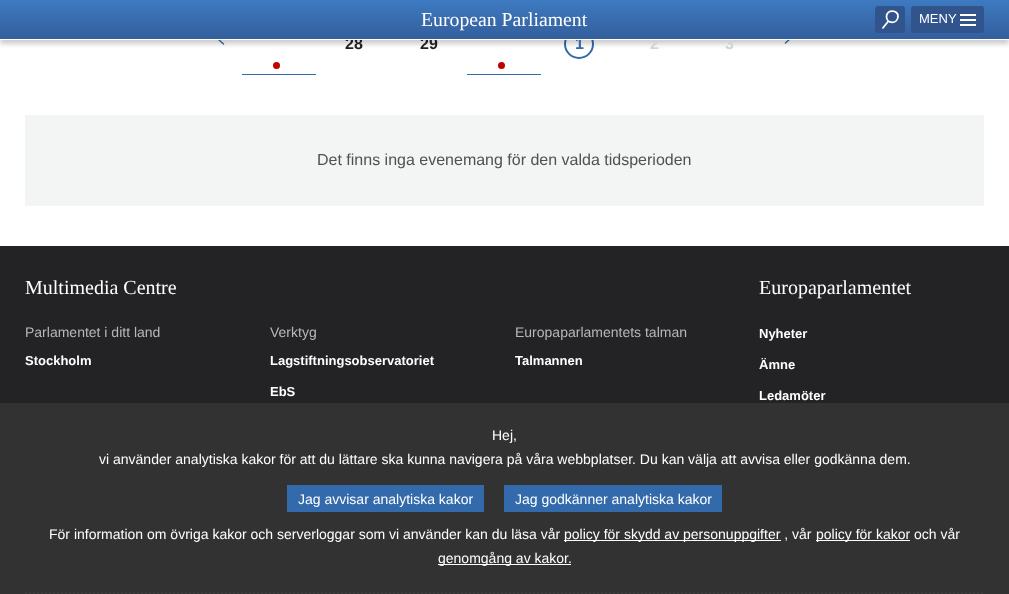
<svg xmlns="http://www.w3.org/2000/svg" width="1009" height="594">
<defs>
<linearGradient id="g1" gradientUnits="userSpaceOnUse" x1="505" y1="0" x2="505" y2="39"><stop offset="0" stop-color="#3d7ac1"/><stop offset="1" stop-color="#345e9c"/></linearGradient>
</defs>
<rect width="100%" height="100%" fill="#fff"/>
<path d="M223.5 44l-5.5-5zm0-10.5l-5.5 5.5z" fill="none" stroke="#326aab" stroke-width="1.4" stroke-linecap="round" stroke-linejoin="round"/>
<circle cx="579" cy="44" r="14" fill="none" stroke="#326aab" stroke-width="2"/>
<path d="M785.5 32.5l5.5 5.5zm0 10.5l5.5-5z" fill="none" stroke="#326aab" stroke-width="1.4" stroke-linecap="round" stroke-linejoin="round"/>
<rect y="4" width="1009" height="40" fill="#00000033" filter="blur(2.5px)"/>
<text x="345" y="49" style="font-family:Liberation Sans;font-size:16px;font-weight:bold;fill:#1e1e1f">28</text>
<text x="420" y="49" style="font-family:Liberation Sans;font-size:16px;font-weight:bold;fill:#1e1e1f">29</text>
<text x="575" y="49" style="font-family:Liberation Sans;font-size:16px;font-weight:bold;fill:#326aab">1</text>
<text x="650" y="49" style="font-family:Liberation Sans;font-size:16px;font-weight:bold;fill:#d1d3d4">2</text>
<text x="725" y="49" style="font-family:Liberation Sans;font-size:16px;font-weight:bold;fill:#d1d3d4">3</text>
<rect width="1009" height="39" fill="url(#g1)"/>
<rect y="39" width="1009" height="1" fill="#fff"/>
<text x="421" y="26" style="font-family:Liberation Serif;font-size:19.75px;fill:#fff">European Parliament</text>
<rect x="875" y="6" width="30" height="27" rx="3" fill="#32548d"/>
<path d="M886.5 16.5c0 7.5 11 8 11.5 0c.5-7-11.5-7.5-11.5 0zm2 4.5l-6 7.5" fill="none" stroke="#fff" stroke-width="1.8"/>
<rect x="911" y="6" width="73" height="27" rx="3" fill="#32548d"/>
<text x="919" y="23" style="font-family:Liberation Sans;font-size:13px;fill:#fff">MENY</text>
<rect x="960" y="14" width="16" height="2" fill="#fff"/>
<rect x="960" y="19" width="16" height="2" fill="#fff"/>
<rect x="960" y="24" width="16" height="2" fill="#fff"/>
<rect x="242" y="74" width="74" height="1" fill="#326aab"/>
<circle cx="276.5" cy="65.5" r="3.5" fill="#c20000"/>
<rect x="467" y="74" width="74" height="1" fill="#326aab"/>
<circle cx="501.5" cy="65.5" r="3.5" fill="#c20000"/>
<rect x="25" y="115" width="959" height="91" fill="#f3f4f4"/>
<text x="317" y="165" style="font-family:Liberation Sans;font-size:16px;fill:#505154">Det finns inga evenemang för den valda tidsperioden</text>
<rect y="246" width="1009" height="157" fill="#232225"/>
<rect y="403" width="1009" height="191" fill="#323232"/>
<path d="M25 593h959" fill="none" stroke="#3b3b3b" stroke-width="2" stroke-dasharray="2 2"/>
<text x="25" y="294" style="font-family:Liberation Serif;font-size:20px;fill:#fff">Multimedia Centre</text>
<text x="25" y="337" style="font-family:Liberation Sans;font-size:14px;fill:#b5b9ba">Parlamentet i ditt land</text>
<text x="25" y="365" style="font-family:Liberation Sans;font-size:13px;font-weight:bold;fill:#fff">Stockholm</text>
<text x="270" y="337" style="font-family:Liberation Sans;font-size:14px;fill:#b5b9ba">Verktyg</text>
<text x="270" y="365" style="font-family:Liberation Sans;font-size:13px;font-weight:bold;fill:#fff">Lagstiftningsobservatoriet</text>
<text x="270" y="396" style="font-family:Liberation Sans;font-size:13px;font-weight:bold;fill:#fff">EbS</text>
<text x="515" y="337" style="font-family:Liberation Sans;font-size:14px;fill:#b5b9ba">Europaparlamentets talman</text>
<text x="515" y="365" style="font-family:Liberation Sans;font-size:13px;font-weight:bold;fill:#fff">Talmannen</text>
<text x="759" y="294" style="font-family:Liberation Serif;font-size:20px;fill:#fff">Europaparlamentet</text>
<text x="759" y="338" style="font-family:Liberation Sans;font-size:13px;font-weight:bold;fill:#fff">Nyheter</text>
<text x="759" y="369" style="font-family:Liberation Sans;font-size:13px;font-weight:bold;fill:#fff">Ämne</text>
<text x="759" y="400" style="font-family:Liberation Sans;font-size:13px;font-weight:bold;fill:#fff">Ledamöter</text>
<text x="492" y="440" style="font-family:Liberation Sans;font-size:14px;fill:#fff">Hej,</text>
<text x="99" y="464" style="font-family:Liberation Sans;font-size:14px;fill:#fff">vi använder analytiska kakor för att du lättare ska kunna navigera på våra webbplatser. Du kan välja att avvisa eller godkänna dem.</text>
<rect x="287" y="485" width="197" height="27" fill="#326aab"/>
<text x="298" y="504" style="font-family:Liberation Sans;font-size:14px;fill:#fff">Jag avvisar analytiska kakor</text>
<rect x="504" y="485" width="218" height="27" fill="#326aab"/>
<text x="515" y="504" style="font-family:Liberation Sans;font-size:14px;fill:#fff">Jag godkänner analytiska kakor</text>
<text x="49" y="539" style="font-family:Liberation Sans;font-size:14px;fill:#fff">För information om övriga kakor och serverloggar som vi använder kan du läsa vår</text>
<rect x="564" y="540" width="217" height="1" fill="#fff"/>
<text x="564" y="539" style="font-family:Liberation Sans;font-size:14px;fill:#fff">policy för skydd av personuppgifter , vår</text>
<rect x="816" y="540" width="94" height="1" fill="#fff"/>
<text x="816" y="539" style="font-family:Liberation Sans;font-size:14px;fill:#fff">policy för kakor och vår</text>
<rect x="438" y="564" width="133" height="1" fill="#fff"/>
<text x="438" y="563" style="font-family:Liberation Sans;font-size:14px;fill:#fff">genomgång av kakor.</text>
</svg>
